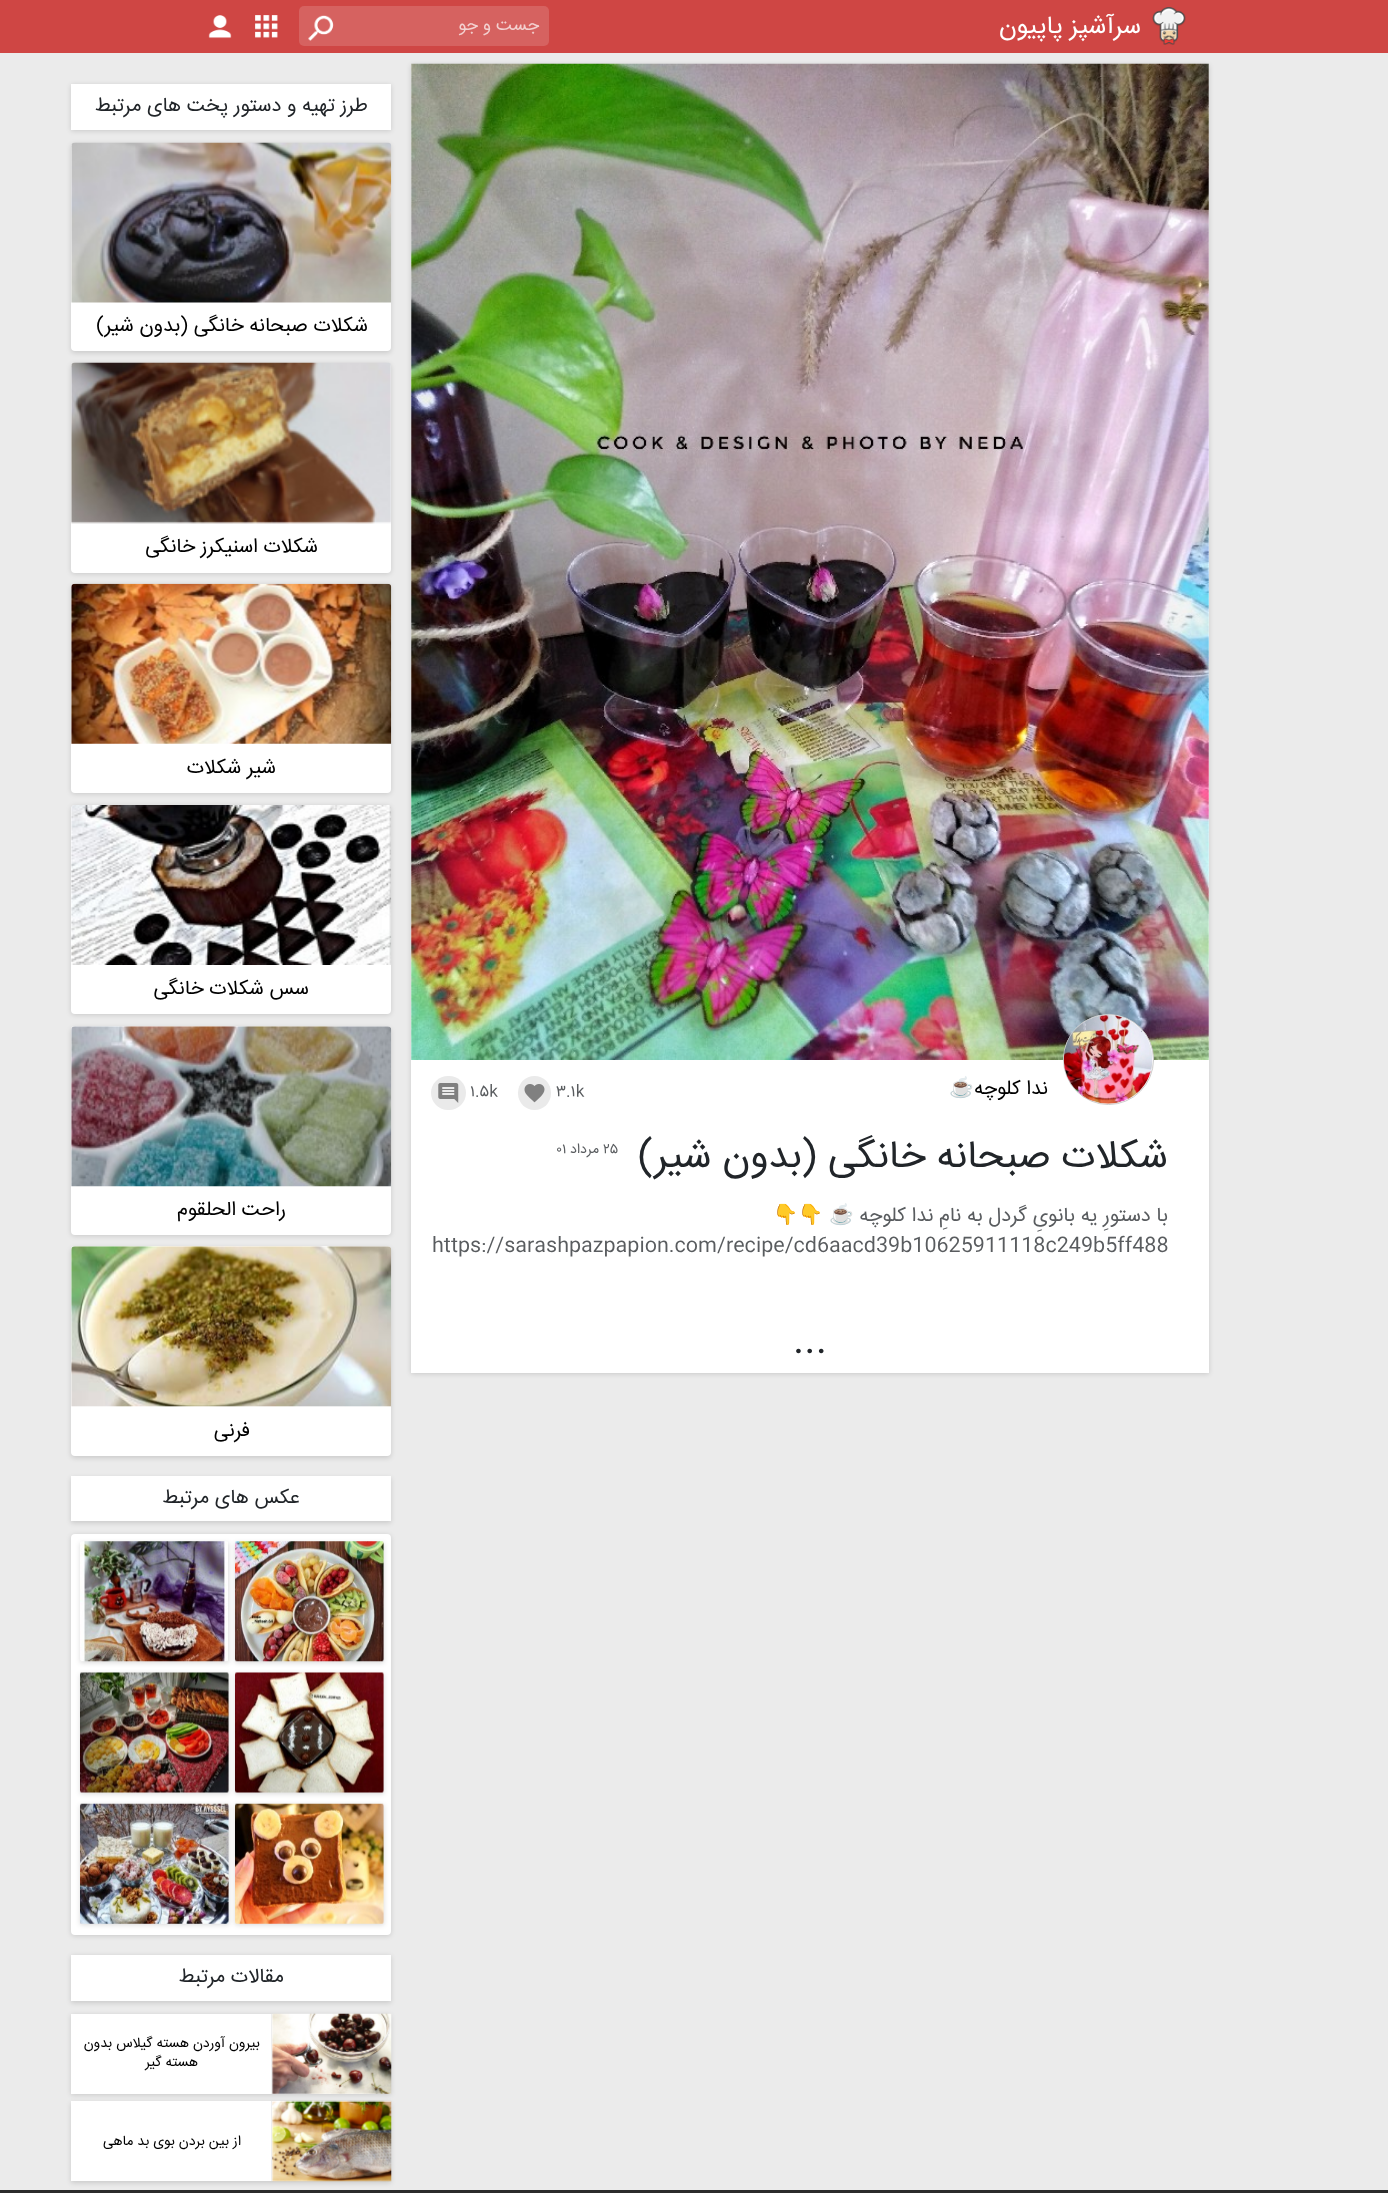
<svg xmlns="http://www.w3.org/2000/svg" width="1388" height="2193">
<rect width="100%" height="100%" fill="#ebebeb"/>
<rect width="1388" height="53" fill="#cf4644"/>
<image x="1152" y="7" width="34" height="38" href="media/1.png"/>
<text x="1141" y="33" style="font-family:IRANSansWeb;font-size:25px;direction:rtl;fill:#fff">سرآشپز پاپیون</text>
<rect x="299" y="6" width="250" height="40" rx="5" fill="#d66260"/>
<image x="308" y="15" width="26" height="26" href="media/2.png"/>
<text x="539" y="30" style="font-family:IRANSansWeb;font-size:17.5px;direction:rtl;fill:#f3d0cf">جست و جو</text>
<image x="255" y="15" width="23" height="23" href="media/3.png"/>
<image x="208" y="15" width="24" height="24" href="media/4.png"/>
<rect x="411" y="65" width="798" height="1309" fill="#00000024" filter="blur(2.5px)"/>
<rect x="411" y="64" width="798" height="1309" fill="#fff"/>
<image x="411" y="63" width="798" height="997" href="media/5.png"/>
<circle cx="1108.5" cy="1059.5" r="45" fill="#fff" stroke="#ccc"/>
<image x="1063" y="1015" width="90" height="89" href="media/6.png"/>
<text x="1048" y="1094" style="font-family:IRANSansWeb;font-size:20px;direction:rtl;fill:#000">ندا کلوچه</text>
<text x="974" y="1094" style="font-family:Noto Color Emoji;font-size:20px;direction:rtl;fill:#000">☕</text>
<text x="556" y="1096" style="font-family:IRANSansWeb;font-size:16px;fill:#595c5f">۳.۱k</text>
<rect x="518" y="1076" width="33" height="34" rx="16.5" fill="#eaeaea"/>
<image x="524" y="1084" width="21" height="19" href="media/7.png"/>
<text x="470" y="1096" style="font-family:IRANSansWeb;font-size:16px;fill:#595c5f">۱.۵k</text>
<rect x="431" y="1076" width="35" height="34" rx="17" fill="#eaeaea"/>
<image x="438" y="1083" width="21" height="20" href="media/8.png"/>
<text x="1168" y="1167" style="font-family:IRANSansWeb;font-size:39px;direction:rtl;fill:#212529">شکلات صبحانه خانگی (بدون شیر)</text>
<text x="603" y="1153" style="font-family:IRANSansWeb;font-size:14px;fill:#595c5f">۲۵</text>
<text x="599" y="1153" style="font-family:IRANSansWeb;font-size:14px;direction:rtl;fill:#595c5f">مرداد</text>
<text x="556" y="1153" style="font-family:IRANSansWeb;font-size:14px;fill:#595c5f">۰۱</text>
<text x="1168" y="1221" style="font-family:IRANSansWeb;font-size:20px;direction:rtl;fill:#595c5f">با دستورِ یه بانویِ گردل به نامِ ندا کلوچه</text>
<text x="854" y="1221" style="font-family:Noto Color Emoji;font-size:20px;direction:rtl;fill:#595c5f">☕</text>
<text x="823" y="1221" style="font-family:Noto Color Emoji;font-size:20px;direction:rtl;fill:#595c5f">👇👇</text>
<text x="432" y="1251" style="font-family:IRANSansWeb;font-size:20px;fill:#595c5f">https://sarashpazpapion.com/recipe/cd6aacd39b10625911118c249b5ff488</text>
<text x="793" y="1351" style="font-family:IRANSansWeb;font-size:40px;fill:#212529">...</text>
<rect x="71" y="85" width="320" height="46" fill="#00000024" filter="blur(2.5px)"/>
<rect x="71" y="84" width="320" height="46" fill="#fff"/>
<text x="368" y="111" style="font-family:IRANSansWeb;font-size:20px;direction:rtl;fill:#212529">طرز تهیه و دستور پخت های مرتبط</text>
<rect x="71" y="144" width="320" height="209" rx="4" fill="#00000024" filter="blur(2.5px)"/>
<rect x="71" y="143" width="320" height="208" rx="4" fill="#fff"/>
<image x="71" y="142" width="321" height="161" href="media/9.png"/>
<text x="368" y="331" style="font-family:IRANSansWeb;font-size:20px;direction:rtl;fill:#000">شکلات صبحانه خانگی (بدون شیر)</text>
<rect x="71" y="364" width="320" height="210" rx="4" fill="#00000024" filter="blur(2.5px)"/>
<rect x="71" y="363" width="320" height="210" rx="4" fill="#fff"/>
<image x="71" y="362" width="320" height="162" href="media/10.png"/>
<text x="318" y="552" style="font-family:IRANSansWeb;font-size:20px;direction:rtl;fill:#000">شکلات اسنیکرز خانگی</text>
<rect x="71" y="585" width="320" height="209" rx="4" fill="#00000024" filter="blur(2.5px)"/>
<rect x="71" y="584" width="320" height="209" rx="4" fill="#fff"/>
<image x="71" y="583" width="321" height="161" href="media/11.png"/>
<text x="276" y="773" style="font-family:IRANSansWeb;font-size:20px;direction:rtl;fill:#000">شیر شکلات</text>
<rect x="71" y="806" width="320" height="209" rx="4" fill="#00000024" filter="blur(2.5px)"/>
<rect x="71" y="805" width="320" height="209" rx="4" fill="#fff"/>
<image x="71" y="805" width="321" height="160" href="media/12.png"/>
<text x="309" y="994" style="font-family:IRANSansWeb;font-size:20px;direction:rtl;fill:#000">سس شکلات خانگی</text>
<rect x="71" y="1028" width="320" height="208" rx="4" fill="#00000024" filter="blur(2.5px)"/>
<rect x="71" y="1026" width="320" height="209" rx="4" fill="#fff"/>
<image x="71" y="1026" width="321" height="161" href="media/13.png"/>
<text x="286" y="1215" style="font-family:IRANSansWeb;font-size:20px;direction:rtl;fill:#000">راحت الحلقوم</text>
<rect x="71" y="1248" width="320" height="210" rx="4" fill="#00000024" filter="blur(2.5px)"/>
<rect x="71" y="1246" width="320" height="210" rx="4" fill="#fff"/>
<image x="71" y="1246" width="321" height="161" href="media/14.png"/>
<text x="250" y="1436" style="font-family:IRANSansWeb;font-size:20px;direction:rtl;fill:#000">فرنی</text>
<rect x="71" y="1478" width="320" height="45" fill="#00000024" filter="blur(2.5px)"/>
<rect x="71" y="1476" width="320" height="45" fill="#fff"/>
<text x="300" y="1503" style="font-family:IRANSansWeb;font-size:20px;direction:rtl;fill:#212529">عکس های مرتبط</text>
<rect x="71" y="1535" width="320" height="401" rx="4" fill="#00000024" filter="blur(2.5px)"/>
<rect x="71" y="1534" width="320" height="401" rx="4" fill="#fff"/>
<rect x="235" y="1543" width="149" height="120" fill="#00000024" filter="blur(2.5px)"/>
<rect x="80" y="1543" width="149" height="120" fill="#00000024" filter="blur(2.5px)"/>
<image x="235" y="1541" width="149" height="121" href="media/15.png"/>
<image x="80" y="1541" width="148" height="121" href="media/16.png"/>
<rect x="235" y="1674" width="149" height="120" fill="#00000024" filter="blur(2.5px)"/>
<rect x="80" y="1674" width="149" height="120" fill="#00000024" filter="blur(2.5px)"/>
<image x="235" y="1672" width="149" height="121" href="media/17.png"/>
<image x="80" y="1672" width="149" height="121" href="media/18.png"/>
<rect x="235" y="1805" width="149" height="120" fill="#00000024" filter="blur(2.5px)"/>
<rect x="80" y="1805" width="149" height="120" fill="#00000024" filter="blur(2.5px)"/>
<image x="235" y="1803" width="149" height="121" href="media/19.png"/>
<image x="80" y="1803" width="149" height="121" href="media/20.png"/>
<rect x="71" y="1956" width="320" height="47" fill="#00000024" filter="blur(2.5px)"/>
<rect x="71" y="1955" width="320" height="46" fill="#fff"/>
<text x="284" y="1982" style="font-family:IRANSansWeb;font-size:20px;direction:rtl;fill:#212529">مقالات مرتبط</text>
<rect x="71" y="2015" width="320" height="80" fill="#00000024" filter="blur(2.5px)"/>
<rect x="71" y="2014" width="320" height="80" fill="#fff"/>
<image x="272" y="2013" width="120" height="81" href="media/21.png"/>
<rect x="271" y="2014" width="1" height="80" fill="#efefef"/>
<text x="260" y="2047" style="font-family:IRANSansWeb;font-size:14px;direction:rtl;fill:#000">بیرون آوردن هسته گیلاس بدون</text>
<text x="198" y="2066" style="font-family:IRANSansWeb;font-size:14px;direction:rtl;fill:#000">هسته گیر</text>
<rect y="2190" width="1388" height="3" fill="#2b2b2b"/>
<rect x="71" y="2103" width="320" height="80" fill="#00000024" filter="blur(2.5px)"/>
<rect x="71" y="2101" width="320" height="80" fill="#fff"/>
<image x="272" y="2100" width="120" height="82" href="media/22.png"/>
<rect x="271" y="2101" width="1" height="80" fill="#efefef"/>
<text x="241" y="2145" style="font-family:IRANSansWeb;font-size:14px;direction:rtl;fill:#000">از بین بردن بوی بد ماهی</text>
</svg>
